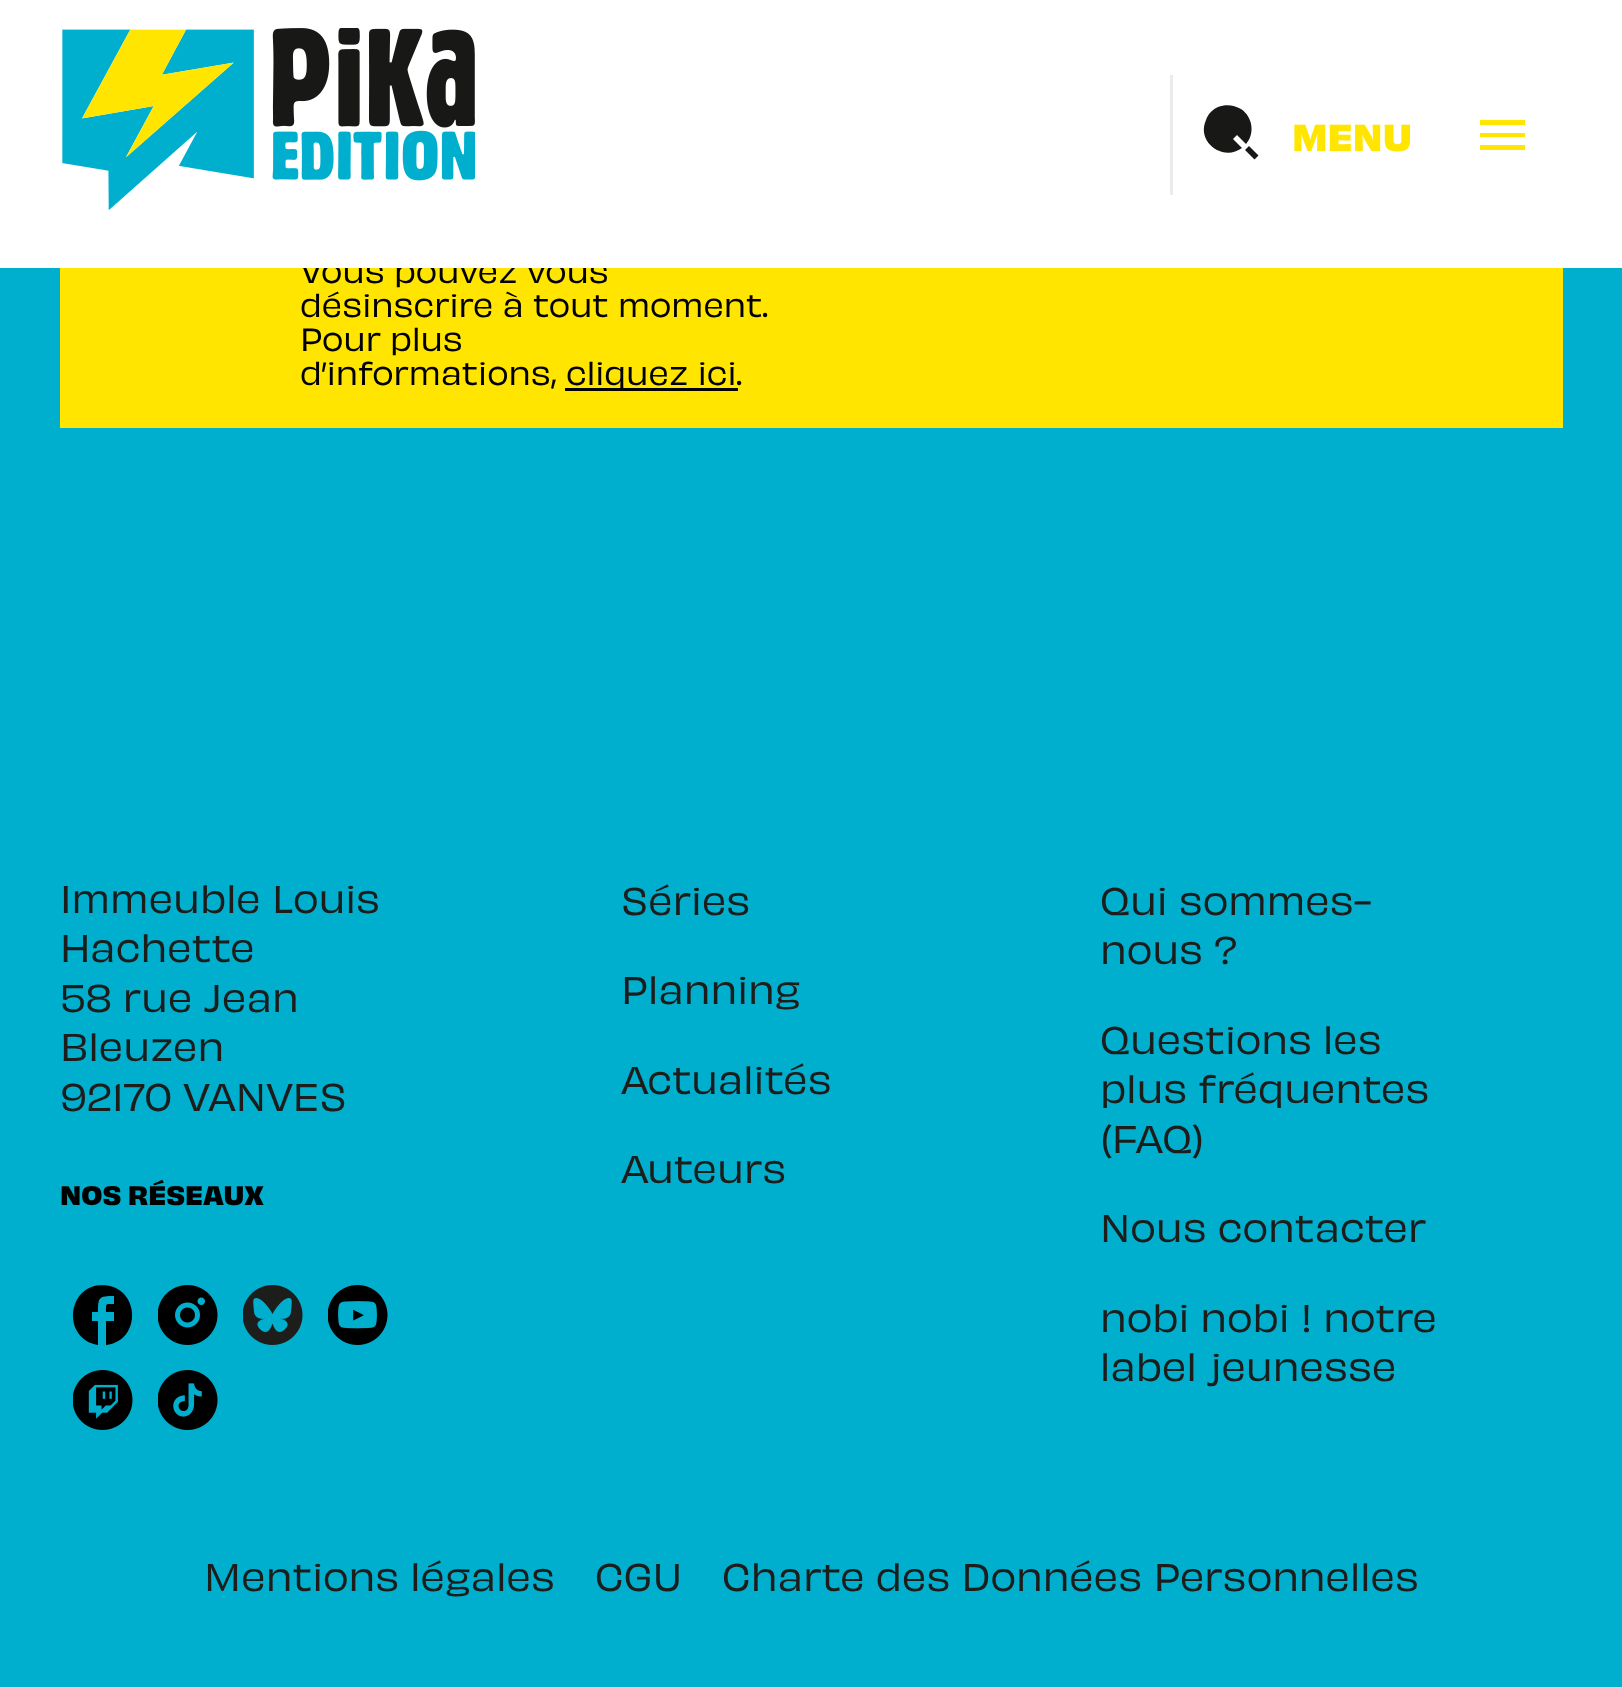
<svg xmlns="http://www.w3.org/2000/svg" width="1622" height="1687">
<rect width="100%" height="100%" fill="#00afce"/>
<rect x="60" y="268" width="1503" height="160" fill="#ffe500"/>
<text x="300" y="283" style="font-family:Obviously;font-size:30px;font-weight:600;fill:#000">Vous pouvez vous</text>
<rect width="1622" height="268" fill="#fff"/>
<image x="62" y="28" width="413" height="182" href="media/1.png"/>
<rect x="1170" y="75" width="3" height="120" fill="#ebebeb"/>
<path d="M1256.5 157.5l-9.5-9.5" fill="none" stroke="#181817" stroke-width="5.7" stroke-linejoin="bevel"/>
<path d="M1246 144c9-10 7-27-5-35c-7-4-15-5-23-2c-5 2-10 7-12 13c-10 22 17 42 36 28l-9-9l4-4z" fill="#181817" fill-rule="evenodd"/>
<text x="1292" y="151" style="font-family:Obviously;font-size:35px;font-weight:bold;fill:#ffe500">MENU</text>
<path d="M1480 120h45v5h-45zm0 17v-4h45v4zm0 13v-5h45v5z" fill="#ffe500"/>
<text x="300" y="317" style="font-family:Obviously;font-size:30px;font-weight:600;fill:#000">désinscrire à tout moment.</text>
<text x="300" y="351" style="font-family:Obviously;font-size:30px;font-weight:600;fill:#000">Pour plus</text>
<text x="300" y="385" style="font-family:Obviously;font-size:30px;font-weight:600;fill:#000">d’informations,</text>
<rect x="565" y="388" width="173" height="3" fill="#000"/>
<text x="566" y="385" style="font-family:Obviously;font-size:30px;font-weight:600;fill:#000">cliquez ici.</text>
<text x="60" y="913" style="font-family:Obviously;font-size:36px;font-weight:600;fill:#1d1d1b">Immeuble Louis</text>
<text x="60" y="962" style="font-family:Obviously;font-size:36px;font-weight:600;fill:#1d1d1b">Hachette</text>
<text x="60" y="1012" style="font-family:Obviously;font-size:36px;font-weight:600;fill:#1d1d1b">58 rue Jean</text>
<text x="60" y="1061" style="font-family:Obviously;font-size:36px;font-weight:600;fill:#1d1d1b">Bleuzen</text>
<text x="60" y="1111" style="font-family:Obviously;font-size:36px;font-weight:600;fill:#1d1d1b">92170 VANVES</text>
<text x="60" y="1205" style="font-family:Obviously;font-size:25px;font-weight:bold;fill:#000">NOS RÉSEAUX</text>
<path d="M102 1285c38 0 41 56 4 60v-24h8v-9h-8c0-9-1-8 8-8v-8c-15 0-16 1-16 16h-6v9h6v24c-36-6-32-60 5-60z" fill="#000"/>
<image x="158" y="1285" width="60" height="60" href="media/2.png"/>
<image x="243" y="1285" width="60" height="60" href="media/3.png"/>
<image x="328" y="1285" width="60" height="60" href="media/4.png"/>
<image x="73" y="1370" width="60" height="60" href="media/5.png"/>
<image x="158" y="1370" width="60" height="60" href="media/6.png"/>
<text x="621" y="915" style="font-family:Obviously;font-size:36px;font-weight:600;fill:#1d1d1b">Séries</text>
<text x="621" y="1004" style="font-family:Obviously;font-size:36px;font-weight:600;fill:#1d1d1b">Planning</text>
<text x="621" y="1094" style="font-family:Obviously;font-size:36px;font-weight:600;fill:#1d1d1b">Actualités</text>
<text x="621" y="1183" style="font-family:Obviously;font-size:36px;font-weight:600;fill:#1d1d1b">Auteurs</text>
<text x="1100" y="915" style="font-family:Obviously;font-size:36px;font-weight:600;fill:#1d1d1b">Qui sommes-</text>
<text x="1100" y="964" style="font-family:Obviously;font-size:36px;font-weight:600;fill:#1d1d1b">nous ?</text>
<text x="1100" y="1054" style="font-family:Obviously;font-size:36px;font-weight:600;fill:#1d1d1b">Questions les</text>
<text x="1100" y="1103" style="font-family:Obviously;font-size:36px;font-weight:600;fill:#1d1d1b">plus fréquentes</text>
<text x="1100" y="1153" style="font-family:Obviously;font-size:36px;font-weight:600;fill:#1d1d1b">(FAQ)</text>
<text x="1100" y="1242" style="font-family:Obviously;font-size:36px;font-weight:600;fill:#1d1d1b">Nous contacter</text>
<text x="1100" y="1332" style="font-family:Obviously;font-size:36px;font-weight:600;fill:#1d1d1b">nobi nobi ! notre</text>
<text x="1100" y="1381" style="font-family:Obviously;font-size:36px;font-weight:600;fill:#1d1d1b">label jeunesse</text>
<text x="204" y="1591" style="font-family:Obviously;font-size:36px;font-weight:600;fill:#1d1d1b">Mentions légales</text>
<text x="595" y="1591" style="font-family:Obviously;font-size:36px;font-weight:600;fill:#1d1d1b">CGU</text>
<text x="722" y="1591" style="font-family:Obviously;font-size:36px;font-weight:600;fill:#1d1d1b">Charte des Données Personnelles</text>
</svg>
